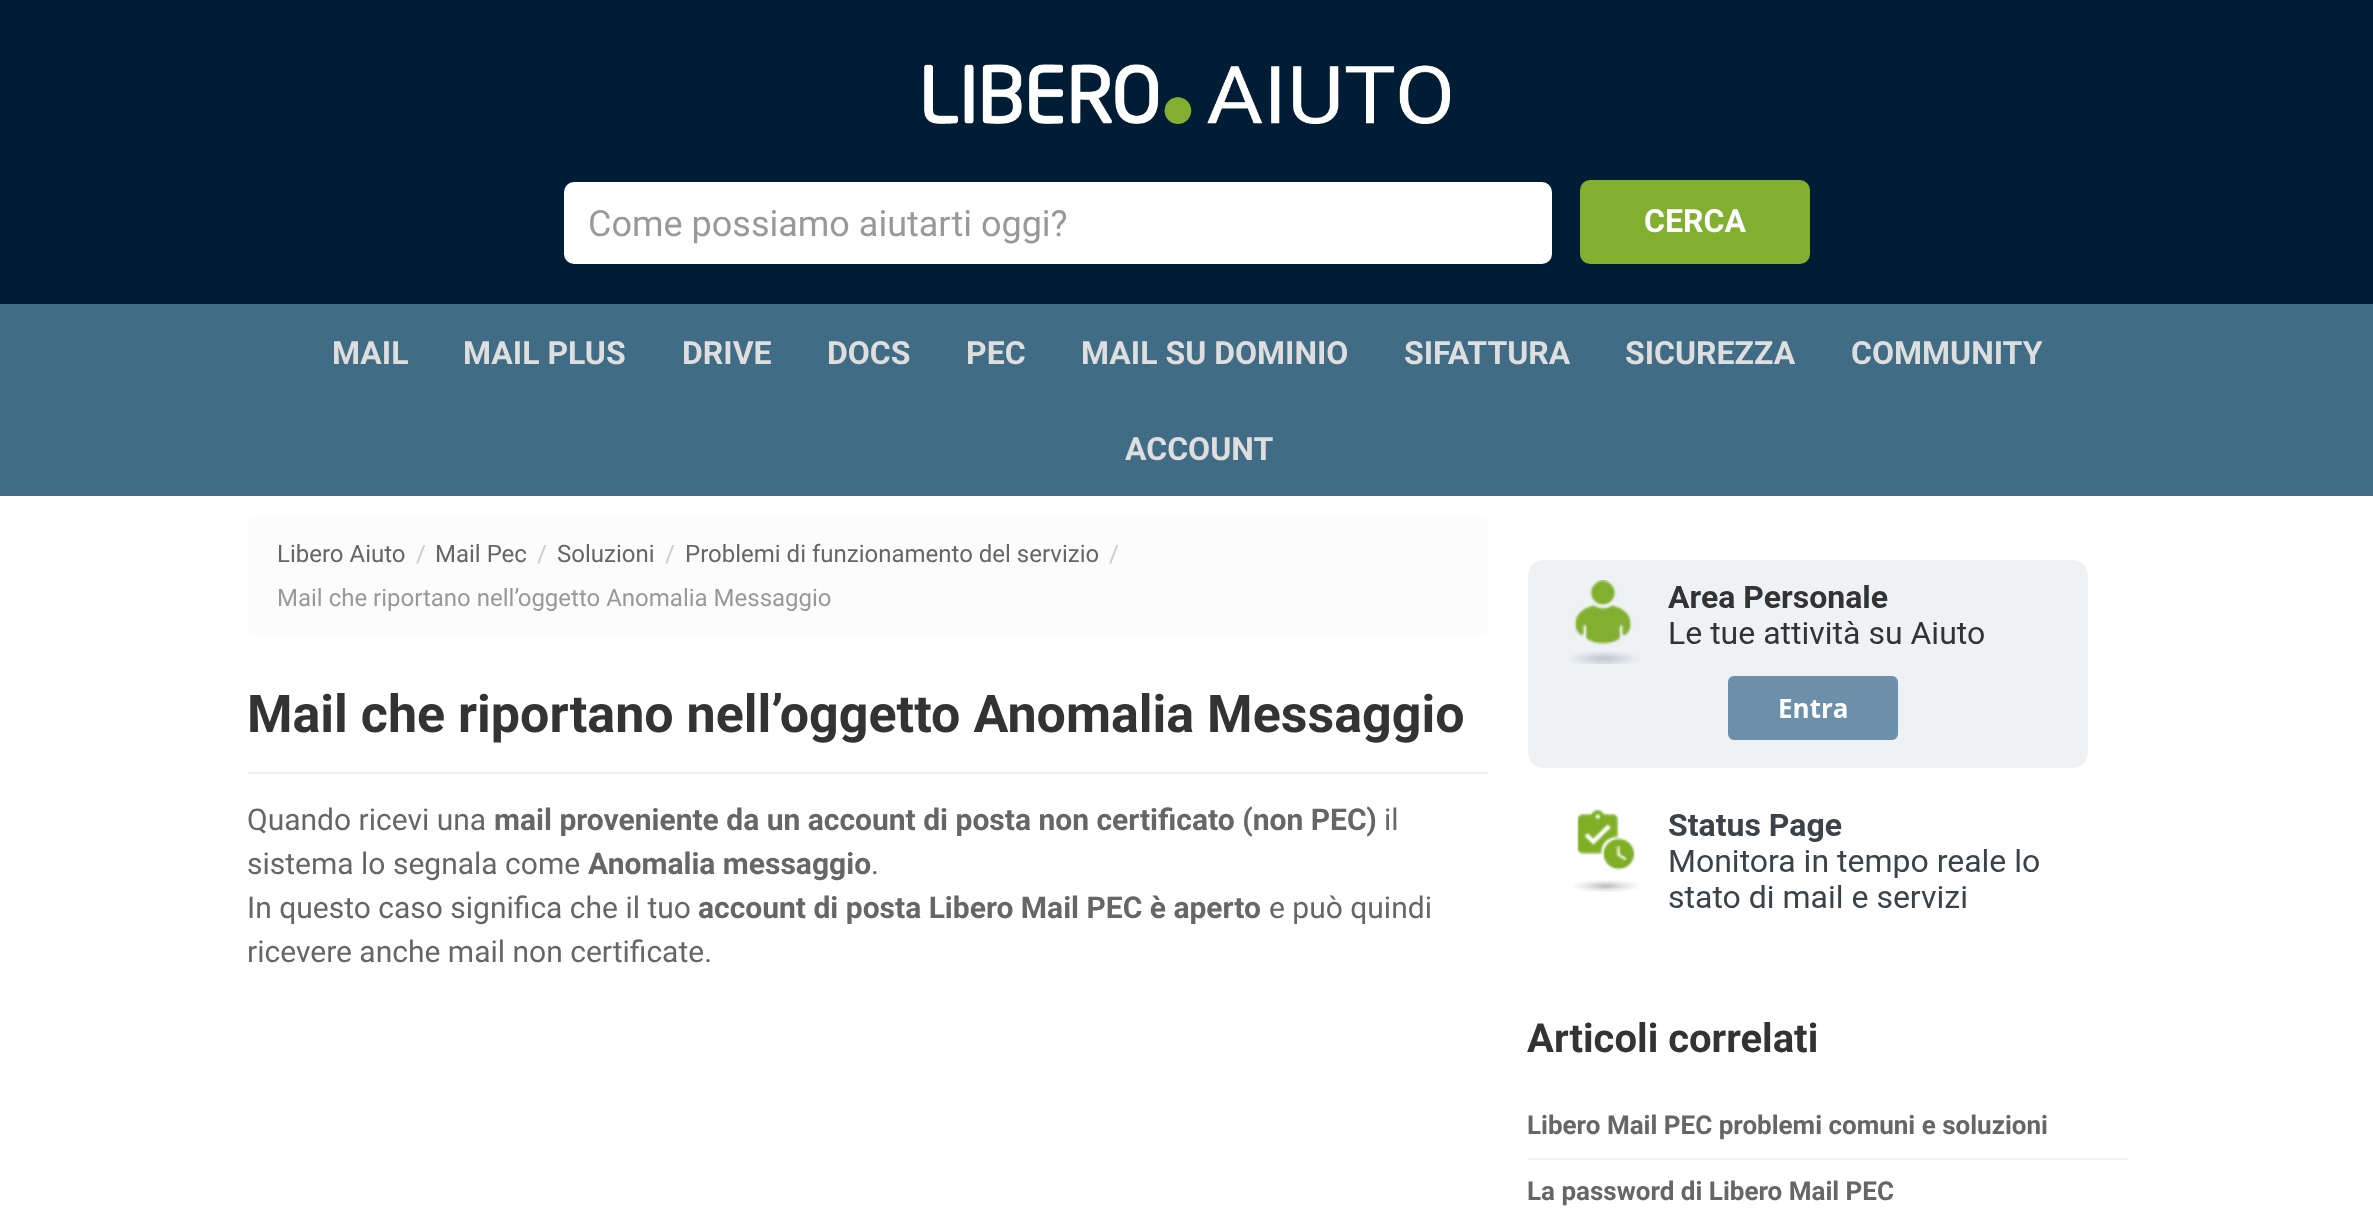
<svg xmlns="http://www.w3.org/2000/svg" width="2373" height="1210">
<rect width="100%" height="100%" fill="#fff"/>
<rect width="2373" height="304" fill="#001d35"/>
<image x="924" y="64" width="526" height="60" href="media/1.png"/>
<rect x="566" y="184" width="984" height="78" rx="8" fill="#fff" stroke="#fff" stroke-width="4"/>
<text x="588" y="236" style="font-family:Roboto;font-size:36px;fill:#999">Come possiamo aiutarti oggi?</text>
<rect x="1582" y="182" width="226" height="80" rx="8" fill="#83af30" stroke="#83af30" stroke-width="4"/>
<text x="1644" y="232" style="font-family:Roboto;font-size:32px;font-weight:bold;fill:#fff">CERCA</text>
<rect y="304" width="2373" height="192" fill="#416c86"/>
<text x="332" y="364" style="font-family:Roboto;font-size:32px;font-weight:bold;fill:#dedede">MAIL</text>
<text x="463" y="364" style="font-family:Roboto;font-size:32px;font-weight:bold;fill:#dedede">MAIL PLUS</text>
<text x="682" y="364" style="font-family:Roboto;font-size:32px;font-weight:bold;fill:#dedede">DRIVE</text>
<text x="827" y="364" style="font-family:Roboto;font-size:32px;font-weight:bold;fill:#dedede">DOCS</text>
<text x="966" y="364" style="font-family:Roboto;font-size:32px;font-weight:bold;fill:#dedede">PEC</text>
<text x="1081" y="364" style="font-family:Roboto;font-size:32px;font-weight:bold;fill:#dedede">MAIL SU DOMINIO</text>
<text x="1404" y="364" style="font-family:Roboto;font-size:32px;font-weight:bold;fill:#dedede">SIFATTURA</text>
<text x="1625" y="364" style="font-family:Roboto;font-size:32px;font-weight:bold;fill:#dedede">SICUREZZA</text>
<text x="1851" y="364" style="font-family:Roboto;font-size:32px;font-weight:bold;fill:#dedede">COMMUNITY</text>
<text x="1125" y="460" style="font-family:Roboto;font-size:32px;font-weight:bold;fill:#dedede">ACCOUNT</text>
<rect x="248" y="516" width="1240" height="120" rx="8" fill="#fcfcfc"/>
<text x="277" y="562" style="font-family:Roboto;font-size:24px;fill:#666">Libero Aiuto</text>
<text x="416" y="562" style="font-family:Roboto;font-size:24px;fill:#ccc">/</text>
<text x="435" y="562" style="font-family:Roboto;font-size:24px;fill:#666">Mail Pec</text>
<text x="537" y="562" style="font-family:Roboto;font-size:24px;fill:#ccc">/</text>
<text x="557" y="562" style="font-family:Roboto;font-size:24px;fill:#666">Soluzioni</text>
<text x="665" y="562" style="font-family:Roboto;font-size:24px;fill:#ccc">/</text>
<text x="685" y="562" style="font-family:Roboto;font-size:24px;fill:#666">Problemi di funzionamento del servizio</text>
<text x="1109" y="562" style="font-family:Roboto;font-size:24px;fill:#ccc">/</text>
<text x="277" y="606" style="font-family:Roboto;font-size:24px;fill:#999">Mail che riportano nell’oggetto Anomalia Messaggio</text>
<text x="247" y="732" style="font-family:Roboto;font-size:52px;font-weight:bold;fill:#333">Mail che riportano nell’oggetto Anomalia Messaggio</text>
<rect x="248" y="772" width="1240" height="2" fill="#eee"/>
<text x="247" y="830" style="font-family:Roboto;font-size:30px;fill:#666">Quando ricevi una</text>
<text x="494" y="830" style="font-family:Roboto;font-size:30px;font-weight:bold;fill:#666">mail proveniente da un account di posta non certificato (non PEC)</text>
<text x="1384" y="830" style="font-family:Roboto;font-size:30px;fill:#666">il</text>
<text x="247" y="874" style="font-family:Roboto;font-size:30px;fill:#666">sistema lo segnala come</text>
<text x="588" y="874" style="font-family:Roboto;font-size:30px;font-weight:bold;fill:#666">Anomalia messaggio</text>
<text x="871" y="874" style="font-family:Roboto;font-size:30px;fill:#666">.</text>
<text x="247" y="918" style="font-family:Roboto;font-size:30px;fill:#666">In questo caso significa che il tuo</text>
<text x="698" y="918" style="font-family:Roboto;font-size:30px;font-weight:bold;fill:#666">account di posta Libero Mail PEC è aperto</text>
<text x="1269" y="918" style="font-family:Roboto;font-size:30px;fill:#666">e può quindi</text>
<text x="247" y="962" style="font-family:Roboto;font-size:30px;fill:#666">ricevere anche mail non certificate.</text>
<image x="1528" y="560" width="560" height="348" href="media/2.png"/>
<text x="1527" y="1052" style="font-family:Roboto;font-size:40px;font-weight:bold;fill:#333">Articoli correlati</text>
<rect x="1528" y="1158" width="600" height="2" fill="#f2f2f2"/>
<text x="1527" y="1134" style="font-family:Roboto;font-size:26px;font-weight:bold;fill:#666">Libero Mail PEC problemi comuni e soluzioni</text>
<text x="1527" y="1200" style="font-family:Roboto;font-size:26px;font-weight:bold;fill:#666">La password di Libero Mail PEC</text>
</svg>
